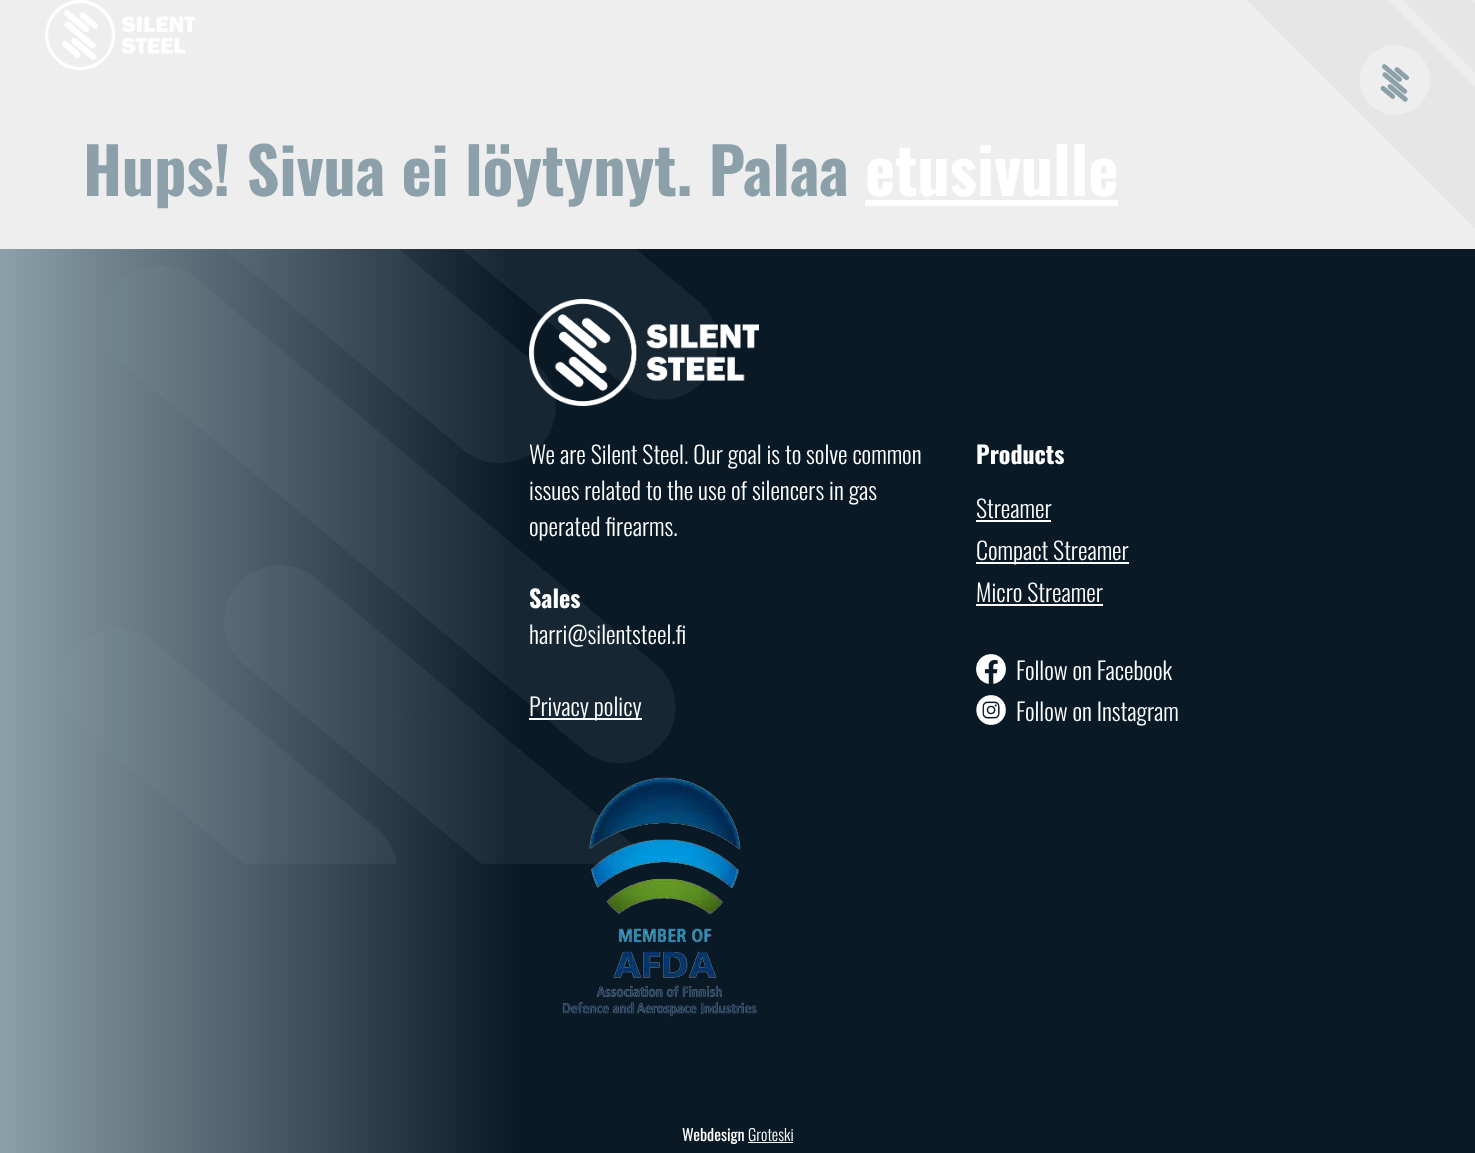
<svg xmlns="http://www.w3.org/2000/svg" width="1475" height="1153">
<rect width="100%" height="100%" fill="#efeeee"/>
<image x="45" y="0" width="150" height="70" href="media/1.png"/>
<path d="M799-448l71-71l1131 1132l-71 71z" fill="#e6e6e6"/>
<path d="M837-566l35-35l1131 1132l-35 35z" fill="#e6e6e6"/>
<circle cx="1395" cy="80" r="35" fill="#efeeee"/>
<image x="1380" y="64" width="29" height="38" href="media/2.png"/>
<text x="83" y="196" style="font-family:Oswald;font-size:64px;font-weight:bold;fill:#8ca0a9">Hups! Sivua ei löytynyt. Palaa</text>
<text x="865" y="196" style="font-family:Oswald;font-size:64px;font-weight:bold;fill:#fff">etusivulle</text>
<rect x="865" y="200" width="253" height="6" fill="#fff"/>
<image x="0" y="249" width="1475" height="904" href="media/3.png"/>
<image x="529" y="299" width="230" height="107" href="media/4.png"/>
<text x="529" y="464" style="font-family:Oswald;font-size:24px;font-weight:300;fill:#fff">We are Silent Steel. Our goal is to solve common</text>
<text x="529" y="500" style="font-family:Oswald;font-size:24px;font-weight:300;fill:#fff">issues related to the use of silencers in gas</text>
<text x="529" y="536" style="font-family:Oswald;font-size:24px;font-weight:300;fill:#fff">operated firearms.</text>
<text x="529" y="608" style="font-family:Oswald;font-size:24px;font-weight:bold;fill:#fff">Sales</text>
<text x="529" y="644" style="font-family:Oswald;font-size:24px;font-weight:300;fill:#fff">harri@silentsteel.fi</text>
<rect x="529" y="718" width="113" height="2" fill="#fff"/>
<text x="529" y="716" style="font-family:Oswald;font-size:24px;font-weight:300;fill:#fff">Privacy policy</text>
<image x="562" y="777" width="195" height="240" href="media/5.png"/>
<text x="976" y="464" style="font-family:Oswald;font-size:24px;font-weight:bold;fill:#fff">Products</text>
<text x="976" y="518" style="font-family:Oswald;font-size:24px;font-weight:300;fill:#fff">Streamer</text>
<rect x="976" y="520" width="75" height="2" fill="#fff"/>
<rect x="976" y="562" width="153" height="2" fill="#fff"/>
<text x="976" y="560" style="font-family:Oswald;font-size:24px;font-weight:300;fill:#fff">Compact Streamer</text>
<text x="976" y="602" style="font-family:Oswald;font-size:24px;font-weight:300;fill:#fff">Micro Streamer</text>
<rect x="976" y="604" width="127" height="2" fill="#fff"/>
<image x="976" y="654" width="30" height="30" href="media/6.png"/>
<text x="1016" y="680" style="font-family:Oswald;font-size:24px;font-weight:300;fill:#fff">Follow on Facebook</text>
<image x="976" y="695" width="30" height="30" href="media/7.png"/>
<text x="1016" y="721" style="font-family:Oswald;font-size:24px;font-weight:300;fill:#fff">Follow on Instagram</text>
<text x="682" y="1141" style="font-family:Oswald;font-size:16px;fill:#fff">Webdesign</text>
<text x="748" y="1141" style="font-family:Oswald;font-size:16px;font-weight:300;fill:#fff">Groteski</text>
<rect x="748" y="1142" width="45" height="1" fill="#fff"/>
</svg>
